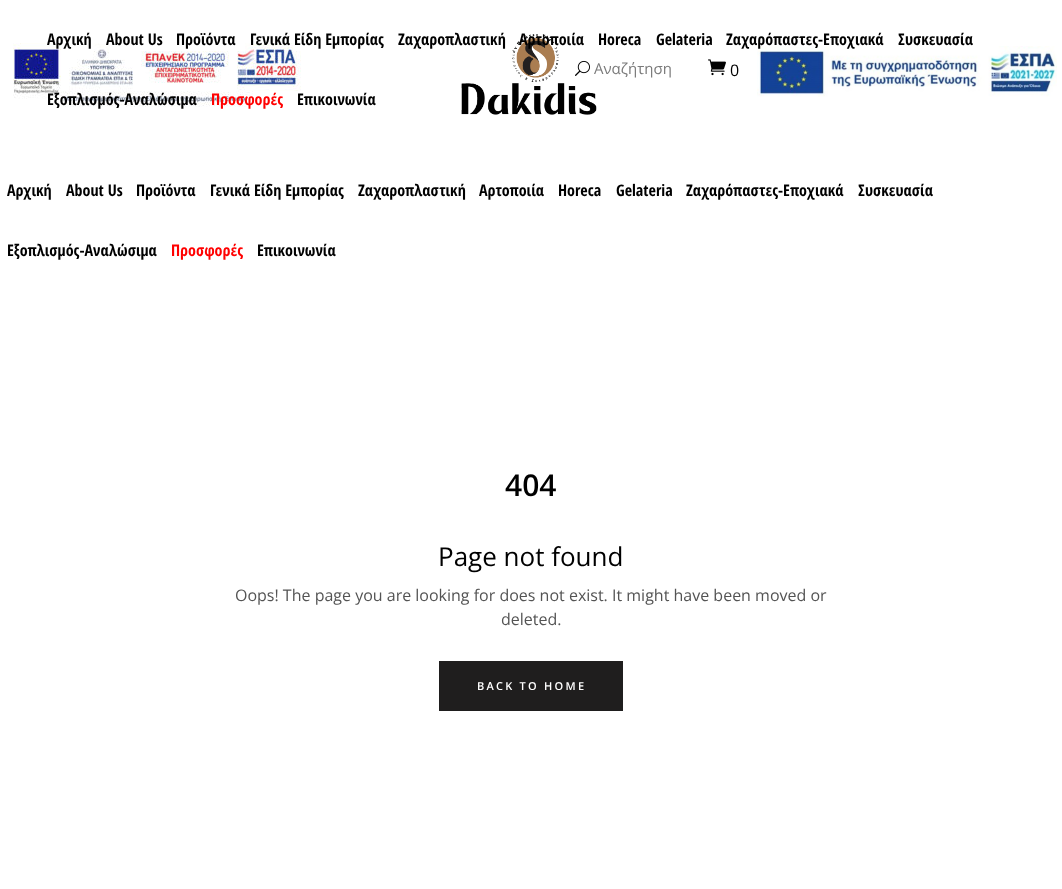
<svg xmlns="http://www.w3.org/2000/svg" width="1062" height="889">
<rect width="100%" height="100%" fill="#fff"/>
<image x="13" y="43" width="288" height="64" href="media/1.png"/>
<text x="47" y="45" style="font-family:Open Sans Condensed;font-size:16px;font-weight:bold;fill:#000">Αρχική</text>
<text x="106" y="45" style="font-family:Open Sans Condensed;font-size:16px;font-weight:bold;fill:#000">About Us</text>
<text x="176" y="45" style="font-family:Open Sans Condensed;font-size:16px;font-weight:bold;fill:#000">Προϊόντα</text>
<text x="250" y="45" style="font-family:Open Sans Condensed;font-size:16px;font-weight:bold;fill:#000">Γενικά Είδη Εμπορίας</text>
<image x="461" y="34" width="136" height="81" href="media/2.png"/>
<text x="398" y="45" style="font-family:Open Sans Condensed;font-size:16px;font-weight:bold;fill:#000">Ζαχαροπλαστική</text>
<text x="519" y="45" style="font-family:Open Sans Condensed;font-size:16px;font-weight:bold;fill:#000">Αρτοποιία</text>
<text x="598" y="45" style="font-family:Open Sans Condensed;font-size:16px;font-weight:bold;fill:#000">Horeca</text>
<text x="656" y="45" style="font-family:Open Sans Condensed;font-size:16px;font-weight:bold;fill:#000">Gelateria</text>
<image x="757" y="46" width="300" height="51" href="media/5.png"/>
<text x="726" y="45" style="font-family:Open Sans Condensed;font-size:16px;font-weight:bold;fill:#000">Ζαχαρόπαστες-Εποχιακά</text>
<text x="898" y="45" style="font-family:Open Sans Condensed;font-size:16px;font-weight:bold;fill:#000">Συσκευασία</text>
<text x="47" y="105" style="font-family:Open Sans Condensed;font-size:16px;font-weight:bold;fill:#000">Εξοπλισμός-Αναλώσιμα</text>
<text x="211" y="105" style="font-family:Open Sans Condensed;font-size:16px;font-weight:bold;fill:#f00">Προσφορές</text>
<text x="297" y="105" style="font-family:Open Sans Condensed;font-size:16px;font-weight:bold;fill:#000">Επικοινωνία</text>
<image x="575" y="60" width="15" height="16" href="media/3.png"/>
<text x="594" y="74" style="font-family:Open Sans;font-size:15px;fill:#7a7a7a">Αναζήτηση</text>
<image x="708" y="59" width="18" height="17" href="media/4.png"/>
<text x="730" y="76" style="font-family:Open Sans;font-size:16px;fill:#000">0</text>
<text x="7" y="196" style="font-family:Open Sans Condensed;font-size:16px;font-weight:bold;fill:#000">Αρχική</text>
<text x="66" y="196" style="font-family:Open Sans Condensed;font-size:16px;font-weight:bold;fill:#000">About Us</text>
<text x="136" y="196" style="font-family:Open Sans Condensed;font-size:16px;font-weight:bold;fill:#000">Προϊόντα</text>
<text x="210" y="196" style="font-family:Open Sans Condensed;font-size:16px;font-weight:bold;fill:#000">Γενικά Είδη Εμπορίας</text>
<text x="358" y="196" style="font-family:Open Sans Condensed;font-size:16px;font-weight:bold;fill:#000">Ζαχαροπλαστική</text>
<text x="479" y="196" style="font-family:Open Sans Condensed;font-size:16px;font-weight:bold;fill:#000">Αρτοποιία</text>
<text x="558" y="196" style="font-family:Open Sans Condensed;font-size:16px;font-weight:bold;fill:#000">Horeca</text>
<text x="616" y="196" style="font-family:Open Sans Condensed;font-size:16px;font-weight:bold;fill:#000">Gelateria</text>
<text x="686" y="196" style="font-family:Open Sans Condensed;font-size:16px;font-weight:bold;fill:#000">Ζαχαρόπαστες-Εποχιακά</text>
<text x="858" y="196" style="font-family:Open Sans Condensed;font-size:16px;font-weight:bold;fill:#000">Συσκευασία</text>
<text x="7" y="256" style="font-family:Open Sans Condensed;font-size:16px;font-weight:bold;fill:#000">Εξοπλισμός-Αναλώσιμα</text>
<text x="171" y="256" style="font-family:Open Sans Condensed;font-size:16px;font-weight:bold;fill:#f00">Προσφορές</text>
<text x="257" y="256" style="font-family:Open Sans Condensed;font-size:16px;font-weight:bold;fill:#000">Επικοινωνία</text>
<text x="505" y="496" style="font-family:Open Sans;font-size:30px;font-weight:600;fill:#000">404</text>
<text x="438" y="566" style="font-family:Open Sans;font-size:26px;fill:#000">Page not found</text>
<text x="235" y="601" style="font-family:Open Sans;font-size:16px;fill:#545454">Oops! The page you are looking for does not exist. It might have been moved or</text>
<text x="501" y="625" style="font-family:Open Sans;font-size:16px;fill:#545454">deleted.</text>
<rect x="439" y="661" width="184" height="50" fill="#1f1e1e"/>
<text x="477" y="690" style="font-family:Open Sans;font-size:11px;font-weight:600;letter-spacing:2.25px;fill:#fff">BACK TO HOME</text>
</svg>
